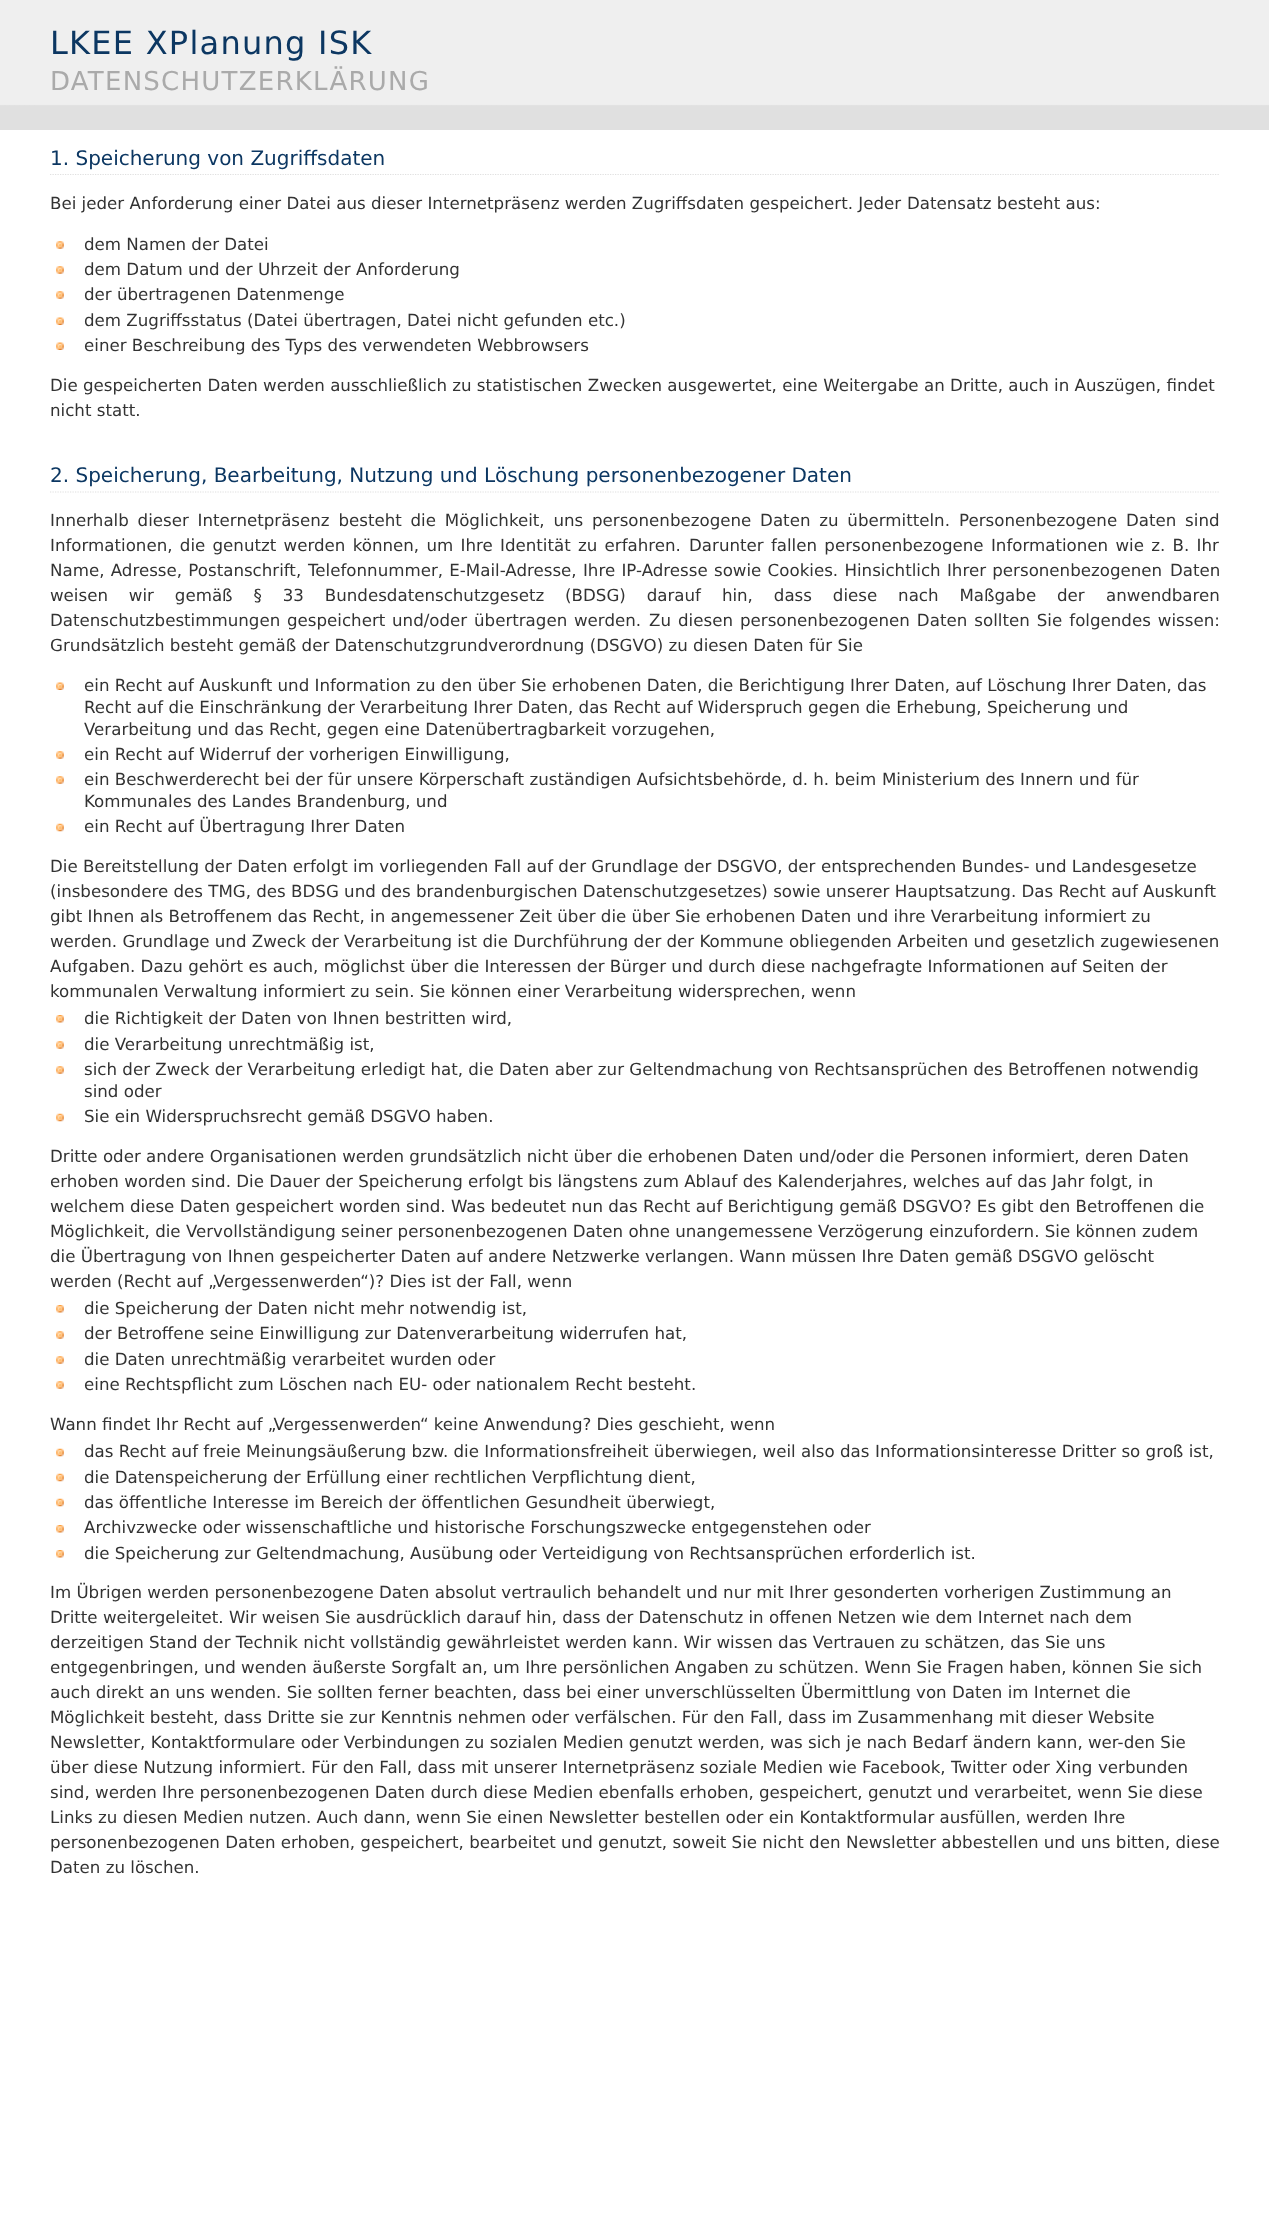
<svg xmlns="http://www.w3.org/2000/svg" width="1269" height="2215">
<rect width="100%" height="100%" fill="#fff"/>
<image x="0" y="0" width="1269" height="130" href="media/1.png"/>
<text x="50" y="54" style="font-family:DejaVu Sans;font-size:32px;letter-spacing:1.25px;fill:#0c3762">LKEE XPlanung ISK</text>
<text x="50" y="90" style="font-family:DejaVu Sans;font-size:26px;letter-spacing:1.25px;fill:#aaa">DATENSCHUTZERKLÄRUNG</text>
<path d="M50 174.5h1170" fill="none" stroke="#e0e0e0" stroke-width="1.2" stroke-dasharray="1.25 1.25"/>
<text x="50" y="165" style="font-family:DejaVu Sans;font-size:20px;fill:#0c3762">1. Speicherung von Zugriffsdaten</text>
<text x="50" y="209" style="font-family:DejaVu Sans;font-size:16.67px;fill:#333">Bei jeder Anforderung einer Datei aus dieser Internetpräsenz werden Zugriffsdaten gespeichert. Jeder</text>
<text x="907" y="209" style="font-family:DejaVu Sans;font-size:16.67px;fill:#333">Datensatz besteht aus:</text>
<image x="56" y="241" width="8" height="8" href="media/2.png"/>
<text x="84" y="250" style="font-family:DejaVu Sans;font-size:16.67px;fill:#333">dem Namen der Datei</text>
<image x="56" y="266" width="8" height="8" href="media/2.png"/>
<text x="84" y="275" style="font-family:DejaVu Sans;font-size:16.67px;fill:#333">dem Datum und der Uhrzeit der Anforderung</text>
<image x="56" y="291" width="8" height="8" href="media/3.png"/>
<text x="84" y="300" style="font-family:DejaVu Sans;font-size:16.67px;fill:#333">der übertragenen Datenmenge</text>
<image x="56" y="317" width="8" height="8" href="media/4.png"/>
<text x="84" y="326" style="font-family:DejaVu Sans;font-size:16.67px;fill:#333">dem Zugriffsstatus (Datei übertragen, Datei nicht gefunden etc.)</text>
<image x="56" y="342" width="8" height="8" href="media/4.png"/>
<text x="84" y="351" style="font-family:DejaVu Sans;font-size:16.67px;fill:#333">einer Beschreibung des Typs des verwendeten Webbrowsers</text>
<text x="50" y="391" style="font-family:DejaVu Sans;font-size:16.67px;fill:#333">Die gespeicherten Daten werden ausschließlich zu statistischen Zwecken ausgewertet, eine Weitergabe</text>
<text x="924" y="391" style="font-family:DejaVu Sans;font-size:16.67px;fill:#333">an Dritte, auch in Auszügen, findet</text>
<text x="50" y="416" style="font-family:DejaVu Sans;font-size:16.67px;fill:#333">nicht statt.</text>
<path d="M50 492h1170" fill="none" stroke="#e0e0e0" stroke-width="1.2" stroke-dasharray="1.25 1.25"/>
<text x="50" y="482" style="font-family:DejaVu Sans;font-size:20px;fill:#0c3762">2. Speicherung, Bearbeitung, Nutzung und Löschung personenbezogener Daten</text>
<text x="50" y="526" word-spacing="3.5" style="font-family:DejaVu Sans;font-size:16.67px;fill:#333">Innerhalb dieser Internetpräsenz besteht die Möglichkeit, uns personenbezogene Daten zu übermitteln.</text>
<text x="959" y="526" word-spacing="3.5" style="font-family:DejaVu Sans;font-size:16.67px;fill:#333">Personenbezogene Daten sind</text>
<text x="50" y="551" word-spacing="2" style="font-family:DejaVu Sans;font-size:16.67px;fill:#333">Informationen, die genutzt werden können, um Ihre Identität zu erfahren.</text>
<text x="689" y="551" word-spacing="2" style="font-family:DejaVu Sans;font-size:16.67px;fill:#333">Darunter fallen personenbezogene Informationen wie z. B. Ihr</text>
<text x="50" y="576" word-spacing="1" style="font-family:DejaVu Sans;font-size:16.67px;fill:#333">Name, Adresse, Postanschrift,</text>
<text x="308" y="576" word-spacing="1" style="font-family:DejaVu Sans;font-size:16.67px;fill:#333">Telefonnummer, E-Mail-Adresse, Ihre IP-Adresse sowie Cookies. Hinsichtlich Ihrer personenbezogenen</text>
<text x="1170" y="576" style="font-family:DejaVu Sans;font-size:16.67px;fill:#333">Daten</text>
<text x="50" y="601" word-spacing="15.6" style="font-family:DejaVu Sans;font-size:16.67px;fill:#333">weisen wir gemäß § 33 Bundesdatenschutzgesetz (BDSG) darauf hin, dass diese nach Maßgabe der</text>
<text x="1106" y="601" style="font-family:DejaVu Sans;font-size:16.67px;fill:#333">anwendbaren</text>
<text x="50" y="626" word-spacing="1.5" style="font-family:DejaVu Sans;font-size:16.67px;fill:#333">Datenschutzbestimmungen gespeichert und/oder übertragen werden.</text>
<text x="649" y="626" word-spacing="1.75" style="font-family:DejaVu Sans;font-size:16.67px;fill:#333">Zu diesen personenbezogenen Daten sollten Sie folgendes wissen:</text>
<text x="50" y="651" style="font-family:DejaVu Sans;font-size:16.67px;fill:#333">Grundsätzlich besteht gemäß der Datenschutzgrundverordnung (DSGVO) zu diesen Daten für Sie</text>
<image x="56" y="682" width="8" height="8" href="media/4.png"/>
<text x="84" y="691" style="font-family:DejaVu Sans;font-size:16.67px;fill:#333">ein Recht auf Auskunft und Information zu den über Sie erhobenen Daten, die Berichtigung</text>
<text x="850" y="691" style="font-family:DejaVu Sans;font-size:16.67px;fill:#333">Ihrer Daten, auf Löschung Ihrer Daten, das</text>
<text x="84" y="713" style="font-family:DejaVu Sans;font-size:16.67px;fill:#333">Recht auf die Einschränkung der Verarbeitung Ihrer Daten, das Recht auf Widerspruch gegen die Erhebung, Speicherung und</text>
<text x="84" y="735" style="font-family:DejaVu Sans;font-size:16.67px;fill:#333">Verarbeitung und das Recht, gegen eine Datenübertragbarkeit vorzugehen,</text>
<image x="56" y="751" width="8" height="8" href="media/2.png"/>
<text x="84" y="760" style="font-family:DejaVu Sans;font-size:16.67px;fill:#333">ein Recht auf Widerruf der vorherigen Einwilligung,</text>
<image x="56" y="776" width="8" height="8" href="media/3.png"/>
<text x="84" y="785" style="font-family:DejaVu Sans;font-size:16.67px;fill:#333">ein Beschwerderecht bei der für unsere Körperschaft zuständigen Aufsichtsbehörde, d. h. beim</text>
<text x="882" y="785" style="font-family:DejaVu Sans;font-size:16.67px;fill:#333">Ministerium des Innern und für</text>
<text x="84" y="807" style="font-family:DejaVu Sans;font-size:16.67px;fill:#333">Kommunales des Landes Brandenburg, und</text>
<image x="56" y="823" width="8" height="9" href="media/5.png"/>
<text x="84" y="832" style="font-family:DejaVu Sans;font-size:16.67px;fill:#333">ein Recht auf Übertragung Ihrer Daten</text>
<text x="50" y="872" style="font-family:DejaVu Sans;font-size:16.67px;fill:#333">Die Bereitstellung der Daten erfolgt im vorliegenden Fall auf der Grundlage der DSGVO, der</text>
<text x="821" y="872" style="font-family:DejaVu Sans;font-size:16.67px;fill:#333">entsprechenden Bundes- und Landesgesetze</text>
<text x="50" y="897" style="font-family:DejaVu Sans;font-size:16.67px;fill:#333">(insbesondere des TMG, des BDSG und des brandenburgischen Datenschutzgesetzes) sowie unserer Hauptsatzung. Das Recht auf Auskunft</text>
<text x="50" y="922" style="font-family:DejaVu Sans;font-size:16.67px;fill:#333">gibt Ihnen als Betroffenem das Recht, in angemessener Zeit über die über Sie erhobenen Daten und ihre Verarbeitung informiert zu</text>
<text x="50" y="947" style="font-family:DejaVu Sans;font-size:16.67px;fill:#333">werden. Grundlage und Zweck der Verarbeitung ist die Durchführung der der Kommune obliegenden Arbeiten und</text>
<text x="1011" y="947" style="font-family:DejaVu Sans;font-size:16.67px;fill:#333">gesetzlich zugewiesenen</text>
<text x="50" y="972" style="font-family:DejaVu Sans;font-size:16.67px;fill:#333">Aufgaben. Dazu gehört es auch, möglichst über die Interessen der Bürger und durch diese nachgefragte Informationen auf Seiten der</text>
<text x="50" y="997" style="font-family:DejaVu Sans;font-size:16.67px;fill:#333">kommunalen Verwaltung informiert zu sein. Sie können einer Verarbeitung widersprechen, wenn</text>
<image x="56" y="1015" width="8" height="8" href="media/6.png"/>
<text x="84" y="1024" style="font-family:DejaVu Sans;font-size:16.67px;fill:#333">die Richtigkeit der Daten von Ihnen bestritten wird,</text>
<image x="56" y="1041" width="8" height="8" href="media/2.png"/>
<text x="84" y="1050" style="font-family:DejaVu Sans;font-size:16.67px;fill:#333">die Verarbeitung unrechtmäßig ist,</text>
<image x="56" y="1066" width="8" height="8" href="media/2.png"/>
<text x="84" y="1075" style="font-family:DejaVu Sans;font-size:16.67px;fill:#333">sich der Zweck der Verarbeitung erledigt hat, die Daten aber zur Geltendmachung von Rechtsansprüchen des Betroffenen notwendig</text>
<text x="84" y="1097" style="font-family:DejaVu Sans;font-size:16.67px;fill:#333">sind oder</text>
<image x="56" y="1113" width="8" height="9" href="media/5.png"/>
<text x="84" y="1122" style="font-family:DejaVu Sans;font-size:16.67px;fill:#333">Sie ein Widerspruchsrecht gemäß DSGVO haben.</text>
<text x="50" y="1162" style="font-family:DejaVu Sans;font-size:16.67px;fill:#333">Dritte oder andere Organisationen werden grundsätzlich nicht über die erhobenen Daten und/oder die</text>
<text x="910" y="1162" style="font-family:DejaVu Sans;font-size:16.67px;fill:#333">Personen informiert, deren Daten</text>
<text x="50" y="1187" style="font-family:DejaVu Sans;font-size:16.67px;fill:#333">erhoben worden sind. Die Dauer der Speicherung erfolgt bis längstens zum Ablauf des Kalenderjahres, welches auf das Jahr folgt, in</text>
<text x="50" y="1212" style="font-family:DejaVu Sans;font-size:16.67px;fill:#333">welchem diese Daten gespeichert worden sind. Was bedeutet nun das Recht auf Berichtigung gemäß DSGVO? Es gibt den Betroffenen die</text>
<text x="50" y="1237" style="font-family:DejaVu Sans;font-size:16.67px;fill:#333">Möglichkeit, die Vervollständigung seiner personenbezogenen Daten ohne unangemessene Verzögerung einzufordern. Sie können zudem</text>
<text x="50" y="1262" style="font-family:DejaVu Sans;font-size:16.67px;fill:#333">die Übertragung von Ihnen gespeicherter Daten auf andere Netzwerke verlangen. Wann müssen Ihre Daten gemäß DSGVO gelöscht</text>
<text x="50" y="1287" style="font-family:DejaVu Sans;font-size:16.67px;fill:#333">werden (Recht auf „Vergessenwerden“)? Dies ist der Fall, wenn</text>
<image x="56" y="1305" width="8" height="8" href="media/6.png"/>
<text x="84" y="1314" style="font-family:DejaVu Sans;font-size:16.67px;fill:#333">die Speicherung der Daten nicht mehr notwendig ist,</text>
<image x="56" y="1331" width="8" height="8" href="media/2.png"/>
<text x="84" y="1339" style="font-family:DejaVu Sans;font-size:16.67px;fill:#333">der Betroffene seine Einwilligung zur Datenverarbeitung widerrufen hat,</text>
<image x="56" y="1356" width="8" height="8" href="media/2.png"/>
<text x="84" y="1365" style="font-family:DejaVu Sans;font-size:16.67px;fill:#333">die Daten unrechtmäßig verarbeitet wurden oder</text>
<image x="56" y="1381" width="8" height="8" href="media/2.png"/>
<text x="84" y="1390" style="font-family:DejaVu Sans;font-size:16.67px;fill:#333">eine Rechtspflicht zum Löschen nach EU- oder nationalem Recht besteht.</text>
<text x="50" y="1430" style="font-family:DejaVu Sans;font-size:16.67px;fill:#333">Wann findet Ihr Recht auf „Vergessenwerden“ keine Anwendung? Dies geschieht, wenn</text>
<image x="56" y="1448" width="8" height="9" href="media/5.png"/>
<text x="84" y="1457" style="font-family:DejaVu Sans;font-size:16.67px;fill:#333">das Recht auf freie Meinungsäußerung bzw. die Informationsfreiheit überwiegen, weil also das</text>
<text x="875" y="1457" style="font-family:DejaVu Sans;font-size:16.67px;fill:#333">Informationsinteresse Dritter so groß ist,</text>
<image x="56" y="1473" width="8" height="9" href="media/5.png"/>
<text x="84" y="1483" style="font-family:DejaVu Sans;font-size:16.67px;fill:#333">die Datenspeicherung der Erfüllung einer rechtlichen Verpflichtung dient,</text>
<image x="56" y="1498" width="8" height="9" href="media/5.png"/>
<text x="84" y="1508" style="font-family:DejaVu Sans;font-size:16.67px;fill:#333">das öffentliche Interesse im Bereich der öffentlichen Gesundheit überwiegt,</text>
<image x="56" y="1525" width="8" height="8" href="media/6.png"/>
<text x="84" y="1533" style="font-family:DejaVu Sans;font-size:16.67px;fill:#333">Archivzwecke oder wissenschaftliche und historische Forschungszwecke entgegenstehen oder</text>
<image x="56" y="1550" width="8" height="8" href="media/6.png"/>
<text x="84" y="1559" style="font-family:DejaVu Sans;font-size:16.67px;fill:#333">die Speicherung zur Geltendmachung, Ausübung oder Verteidigung von Rechtsansprüchen</text>
<text x="849" y="1559" style="font-family:DejaVu Sans;font-size:16.67px;fill:#333">erforderlich ist.</text>
<text x="50" y="1598" style="font-family:DejaVu Sans;font-size:16.67px;fill:#333">Im Übrigen werden personenbezogene Daten absolut vertraulich behandelt und nur mit Ihrer gesonderten</text>
<text x="944" y="1598" style="font-family:DejaVu Sans;font-size:16.67px;fill:#333">vorherigen Zustimmung an</text>
<text x="50" y="1623" style="font-family:DejaVu Sans;font-size:16.67px;fill:#333">Dritte weitergeleitet. Wir weisen Sie ausdrücklich darauf hin, dass der Datenschutz in offenen Netzen wie dem Internet nach dem</text>
<text x="50" y="1648" style="font-family:DejaVu Sans;font-size:16.67px;fill:#333">derzeitigen Stand der Technik nicht vollständig gewährleistet werden kann. Wir wissen das Vertrauen zu schätzen, das Sie uns</text>
<text x="50" y="1673" style="font-family:DejaVu Sans;font-size:16.67px;fill:#333">entgegenbringen, und wenden äußerste Sorgfalt an, um Ihre persönlichen Angaben zu schützen. Wenn Sie</text>
<text x="947" y="1673" style="font-family:DejaVu Sans;font-size:16.67px;fill:#333">Fragen haben, können Sie sich</text>
<text x="50" y="1698" style="font-family:DejaVu Sans;font-size:16.67px;fill:#333">auch direkt an uns wenden. Sie sollten ferner beachten, dass bei einer unverschlüsselten Übermittlung von Daten im Internet die</text>
<text x="50" y="1723" style="font-family:DejaVu Sans;font-size:16.67px;fill:#333">Möglichkeit besteht, dass Dritte sie zur Kenntnis nehmen oder verfälschen. Für den Fall, dass im Zusammenhang mit dieser Website</text>
<text x="50" y="1748" style="font-family:DejaVu Sans;font-size:16.67px;fill:#333">Newsletter, Kontaktformulare oder Verbindungen zu sozialen Medien genutzt werden, was sich je nach Bedarf ändern kann, wer-den Sie</text>
<text x="50" y="1773" style="font-family:DejaVu Sans;font-size:16.67px;fill:#333">über diese Nutzung informiert. Für den Fall, dass mit unserer Internetpräsenz soziale Medien wie Facebook, Twitter oder Xing</text>
<text x="1098" y="1773" style="font-family:DejaVu Sans;font-size:16.67px;fill:#333">verbunden</text>
<text x="50" y="1798" style="font-family:DejaVu Sans;font-size:16.67px;fill:#333">sind, werden Ihre personenbezogenen Daten durch diese Medien ebenfalls erhoben, gespeichert, genutzt und verarbeitet, wenn Sie diese</text>
<text x="50" y="1823" style="font-family:DejaVu Sans;font-size:16.67px;fill:#333">Links zu diesen Medien nutzen. Auch dann, wenn Sie einen Newsletter bestellen oder ein Kontaktformular ausfüllen, werden Ihre</text>
<text x="50" y="1848" style="font-family:DejaVu Sans;font-size:16.67px;fill:#333">personenbezogenen Daten erhoben, gespeichert, bearbeitet und genutzt, soweit Sie nicht den</text>
<text x="846" y="1848" style="font-family:DejaVu Sans;font-size:16.67px;fill:#333">Newsletter abbestellen und uns bitten, diese</text>
<text x="50" y="1873" style="font-family:DejaVu Sans;font-size:16.67px;fill:#333">Daten zu löschen.</text>
</svg>
